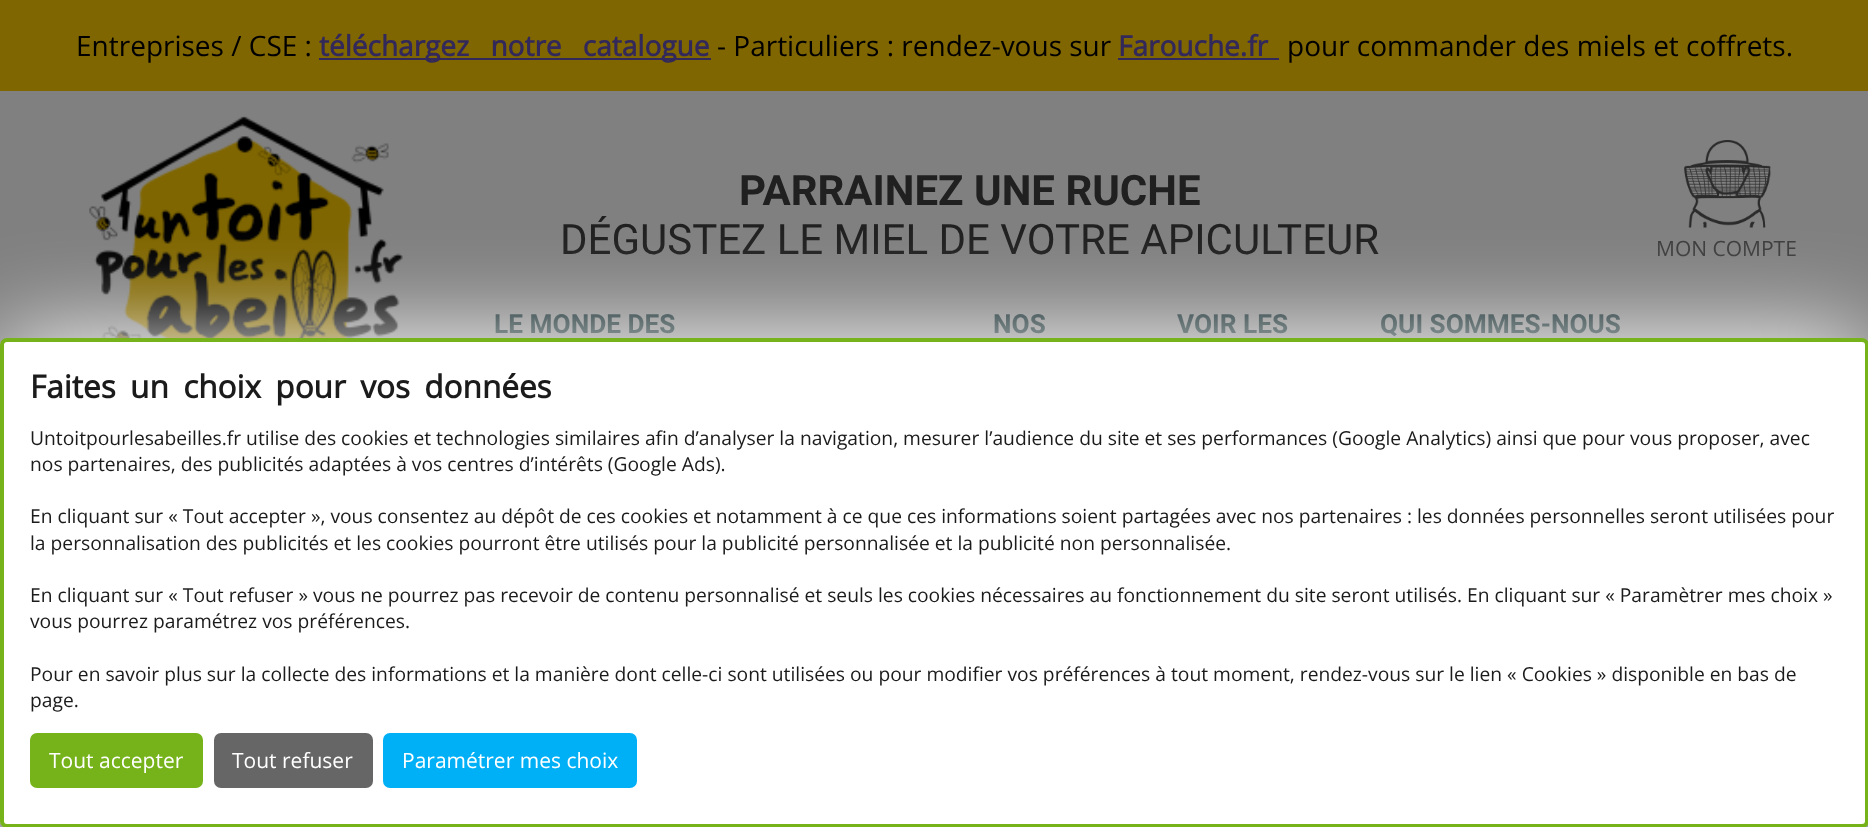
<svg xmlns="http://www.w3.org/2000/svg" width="1868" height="827">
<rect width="100%" height="100%" fill="#808080"/>
<rect width="1868" height="91" fill="#806600"/>
<text x="76" y="56" style="font-family:Open Sans;font-size:28px;fill:#000">Entreprises / CSE :</text>
<rect x="319" y="58" width="392" height="2" fill="#32295a"/>
<text x="319" y="56" word-spacing="14" style="font-family:Open Sans;font-size:28px;font-weight:bold;fill:#32295a">téléchargez notre catalogue</text>
<text x="717" y="56" style="font-family:Open Sans;font-size:28px;fill:#000">- Particuliers : rendez-vous sur</text>
<text x="1118" y="56" style="font-family:Open Sans;font-size:28px;font-weight:bold;fill:#32295a">Farouche.fr</text>
<rect x="1118" y="58" width="161" height="2" fill="#32295a"/>
<text x="1287" y="56" style="font-family:Open Sans;font-size:28px;fill:#000">pour commander des miels et coffrets.</text>
<image x="89" y="116" width="314" height="222" href="media/1.png"/>
<text x="739" y="205" style="font-family:Roboto;font-size:42px;font-weight:bold;fill:#202021">PARRAINEZ UNE RUCHE</text>
<text x="560" y="254" style="font-family:Roboto;font-size:42px;fill:#202021">DÉGUSTEZ LE MIEL DE VOTRE APICULTEUR</text>
<image x="1684" y="140" width="87" height="88" href="media/2.png"/>
<text x="1656" y="256" style="font-family:Open Sans;font-size:21px;fill:#3c3c3c">MON COMPTE</text>
<text x="494" y="333" style="font-family:Roboto;font-size:26.25px;font-weight:bold;fill:#081f22">LE MONDE DES</text>
<text x="993" y="333" style="font-family:Roboto;font-size:26.25px;font-weight:bold;fill:#081f22">NOS</text>
<text x="1177" y="333" style="font-family:Roboto;font-size:26.25px;font-weight:bold;fill:#081f22">VOIR LES</text>
<text x="1380" y="333" style="font-family:Roboto;font-size:26.25px;font-weight:bold;fill:#081f22">QUI SOMMES-NOUS</text>
<rect y="338" width="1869" height="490" rx="7" fill="#fff" filter="blur(49px)"/>
<rect x="2" y="340" width="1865" height="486" rx="5" fill="#fff" stroke="#76b31b" stroke-width="4"/>
<text x="30" y="398" word-spacing="6.25" style="font-family:Open Sans;font-size:31.5px;font-weight:bold;fill:#1b1b1b">Faites un choix pour vos données</text>
<text x="30" y="445" style="font-family:Open Sans;font-size:19.25px;fill:#1b1b1b">Untoitpourlesabeilles.fr utilise des cookies et technologies similaires afin d’analyser la navigation, mesurer l’audience du site et ses performances (Google Analytics) ainsi que pour vous proposer, avec</text>
<text x="30" y="471" style="font-family:Open Sans;font-size:19.25px;fill:#1b1b1b">nos partenaires, des publicités adaptées à vos centres d’intérêts (Google Ads).</text>
<text x="30" y="523" style="font-family:Open Sans;font-size:19.25px;fill:#1b1b1b">En cliquant sur « Tout accepter », vous consentez au dépôt de ces cookies et notamment à ce que ces informations soient partagées avec nos partenaires : les données personnelles seront utilisées pour</text>
<text x="30" y="550" style="font-family:Open Sans;font-size:19.25px;fill:#1b1b1b">la personnalisation des publicités et les cookies pourront être utilisés pour la publicité personnalisée et la publicité non personnalisée.</text>
<text x="30" y="602" style="font-family:Open Sans;font-size:19.25px;fill:#1b1b1b">En cliquant sur « Tout refuser » vous ne pourrez pas recevoir de contenu personnalisé et seuls les cookies nécessaires au fonctionnement du site seront utilisés. En cliquant sur « Paramètrer mes choix »</text>
<text x="30" y="628" style="font-family:Open Sans;font-size:19.25px;fill:#1b1b1b">vous pourrez paramétrez vos préférences.</text>
<text x="30" y="681" style="font-family:Open Sans;font-size:19.25px;fill:#1b1b1b">Pour en savoir plus sur la collecte des informations et la manière dont celle-ci sont utilisées ou pour modifier vos préférences à tout moment, rendez-vous sur le lien « Cookies » disponible en bas de</text>
<text x="30" y="707" style="font-family:Open Sans;font-size:19.25px;fill:#1b1b1b">page.</text>
<rect x="30" y="733" width="173" height="55" rx="7" fill="#76b31b"/>
<text x="49" y="768" style="font-family:Open Sans;font-size:21px;fill:#fff">Tout accepter</text>
<rect x="214" y="733" width="159" height="55" rx="7" fill="#666"/>
<text x="232" y="768" style="font-family:Open Sans;font-size:21px;fill:#fff">Tout refuser</text>
<rect x="383" y="733" width="254" height="55" rx="7" fill="#00b0f7"/>
<text x="402" y="768" style="font-family:Open Sans;font-size:21px;fill:#fff">Paramétrer mes choix</text>
</svg>
